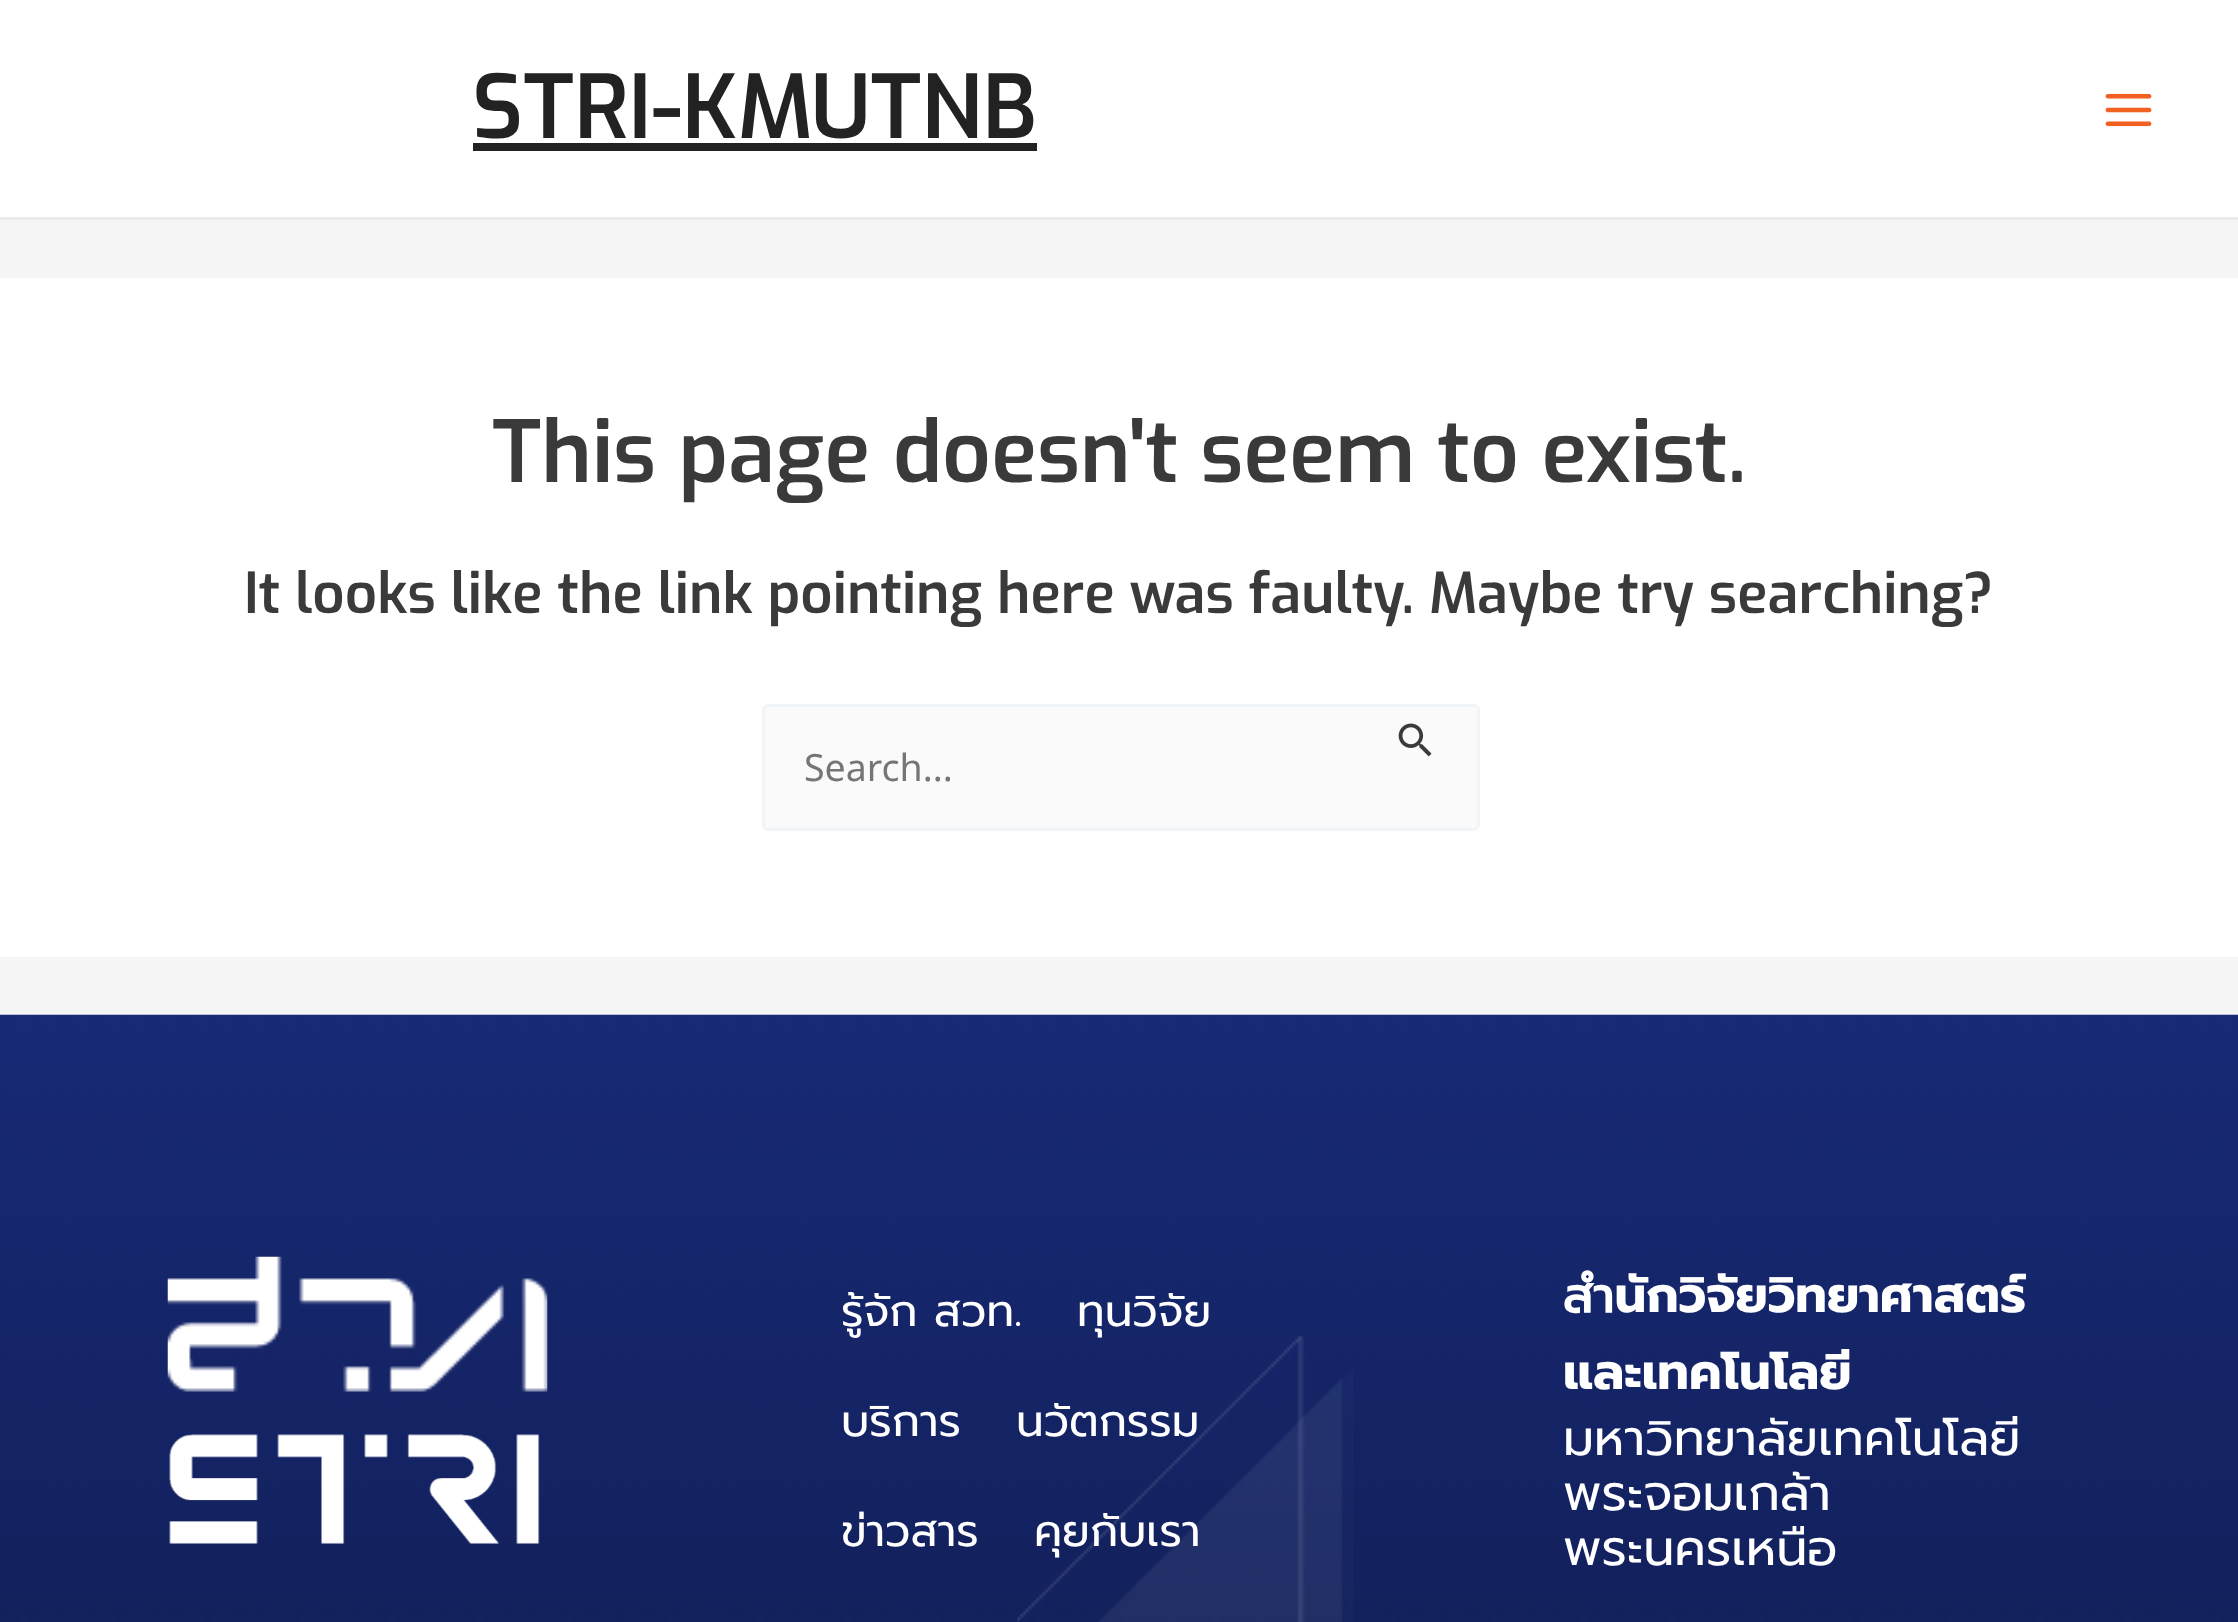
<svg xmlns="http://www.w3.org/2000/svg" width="2238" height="1622">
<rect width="100%" height="100%" fill="#f5f5f5"/>
<rect width="2238" height="217" fill="#fff"/>
<rect y="217" width="2238" height="3" fill="#eaeaea"/>
<text x="472" y="138" style="font-family:Exo;font-size:87.75px;font-weight:600;fill:#222">STRI-KMUTNB</text>
<rect x="473" y="143" width="564" height="8" fill="#222"/>
<image x="2105" y="93" width="47" height="34" href="media/1.png"/>
<rect y="278" width="2238" height="679" fill="#fff"/>
<text x="492" y="482" style="font-family:Exo;font-size:85.25px;font-weight:600;fill:#3a3a3a">This page doesn't seem to exist.</text>
<text x="244" y="613" style="font-family:Exo;font-size:56.4px;font-weight:600;fill:#3a3a3a">It looks like the link pointing here was faulty. Maybe try searching?</text>
<rect x="763.5" y="705.5" width="715" height="124" rx="4.5" fill="#fafafa" stroke="#f2f5f7" stroke-width="3"/>
<image x="1398" y="723" width="34" height="34" href="media/2.png"/>
<text x="804" y="781" style="font-family:Noto Sans;font-size:37.5px;fill:#757575">Search...</text>
<image x="0" y="1014" width="2238" height="608" href="media/3.png"/>
<image x="167" y="1256" width="381" height="136" href="media/4.png"/>
<image x="169" y="1434" width="371" height="110" href="media/5.png"/>
<image x="1017" y="1336" width="336" height="286" href="media/6.png"/>
<text x="841" y="1326" style="font-family:Prompt;font-size:44px;fill:#fff">รู้จัก สวท.</text>
<text x="1077" y="1326" style="font-family:Prompt;font-size:44px;fill:#fff">ทุนวิจัย</text>
<text x="841" y="1436" style="font-family:Prompt;font-size:44px;fill:#fff">บริการ</text>
<text x="1016" y="1436" style="font-family:Prompt;font-size:44px;fill:#fff">นวัตกรรม</text>
<text x="841" y="1546" style="font-family:Prompt;font-size:44px;fill:#fff">ข่าวสาร</text>
<text x="1034" y="1546" style="font-family:Prompt;font-size:44px;fill:#fff">คุยกับเรา</text>
<text x="1563" y="1312" style="font-family:Prompt;font-size:49.5px;font-weight:bold;fill:#fff">สำนักวิจัยวิทยาศาสตร์</text>
<text x="1563" y="1389" style="font-family:Prompt;font-size:49.5px;font-weight:bold;fill:#fff">และเทคโนโลยี</text>
<text x="1563" y="1455" style="font-family:Prompt;font-size:49.5px;fill:#fff">มหาวิทยาลัยเทคโนโลยี</text>
<text x="1563" y="1510" style="font-family:Prompt;font-size:49.5px;fill:#fff">พระจอมเกล้า</text>
<text x="1563" y="1565" style="font-family:Prompt;font-size:49.5px;fill:#fff">พระนครเหนือ</text>
</svg>
